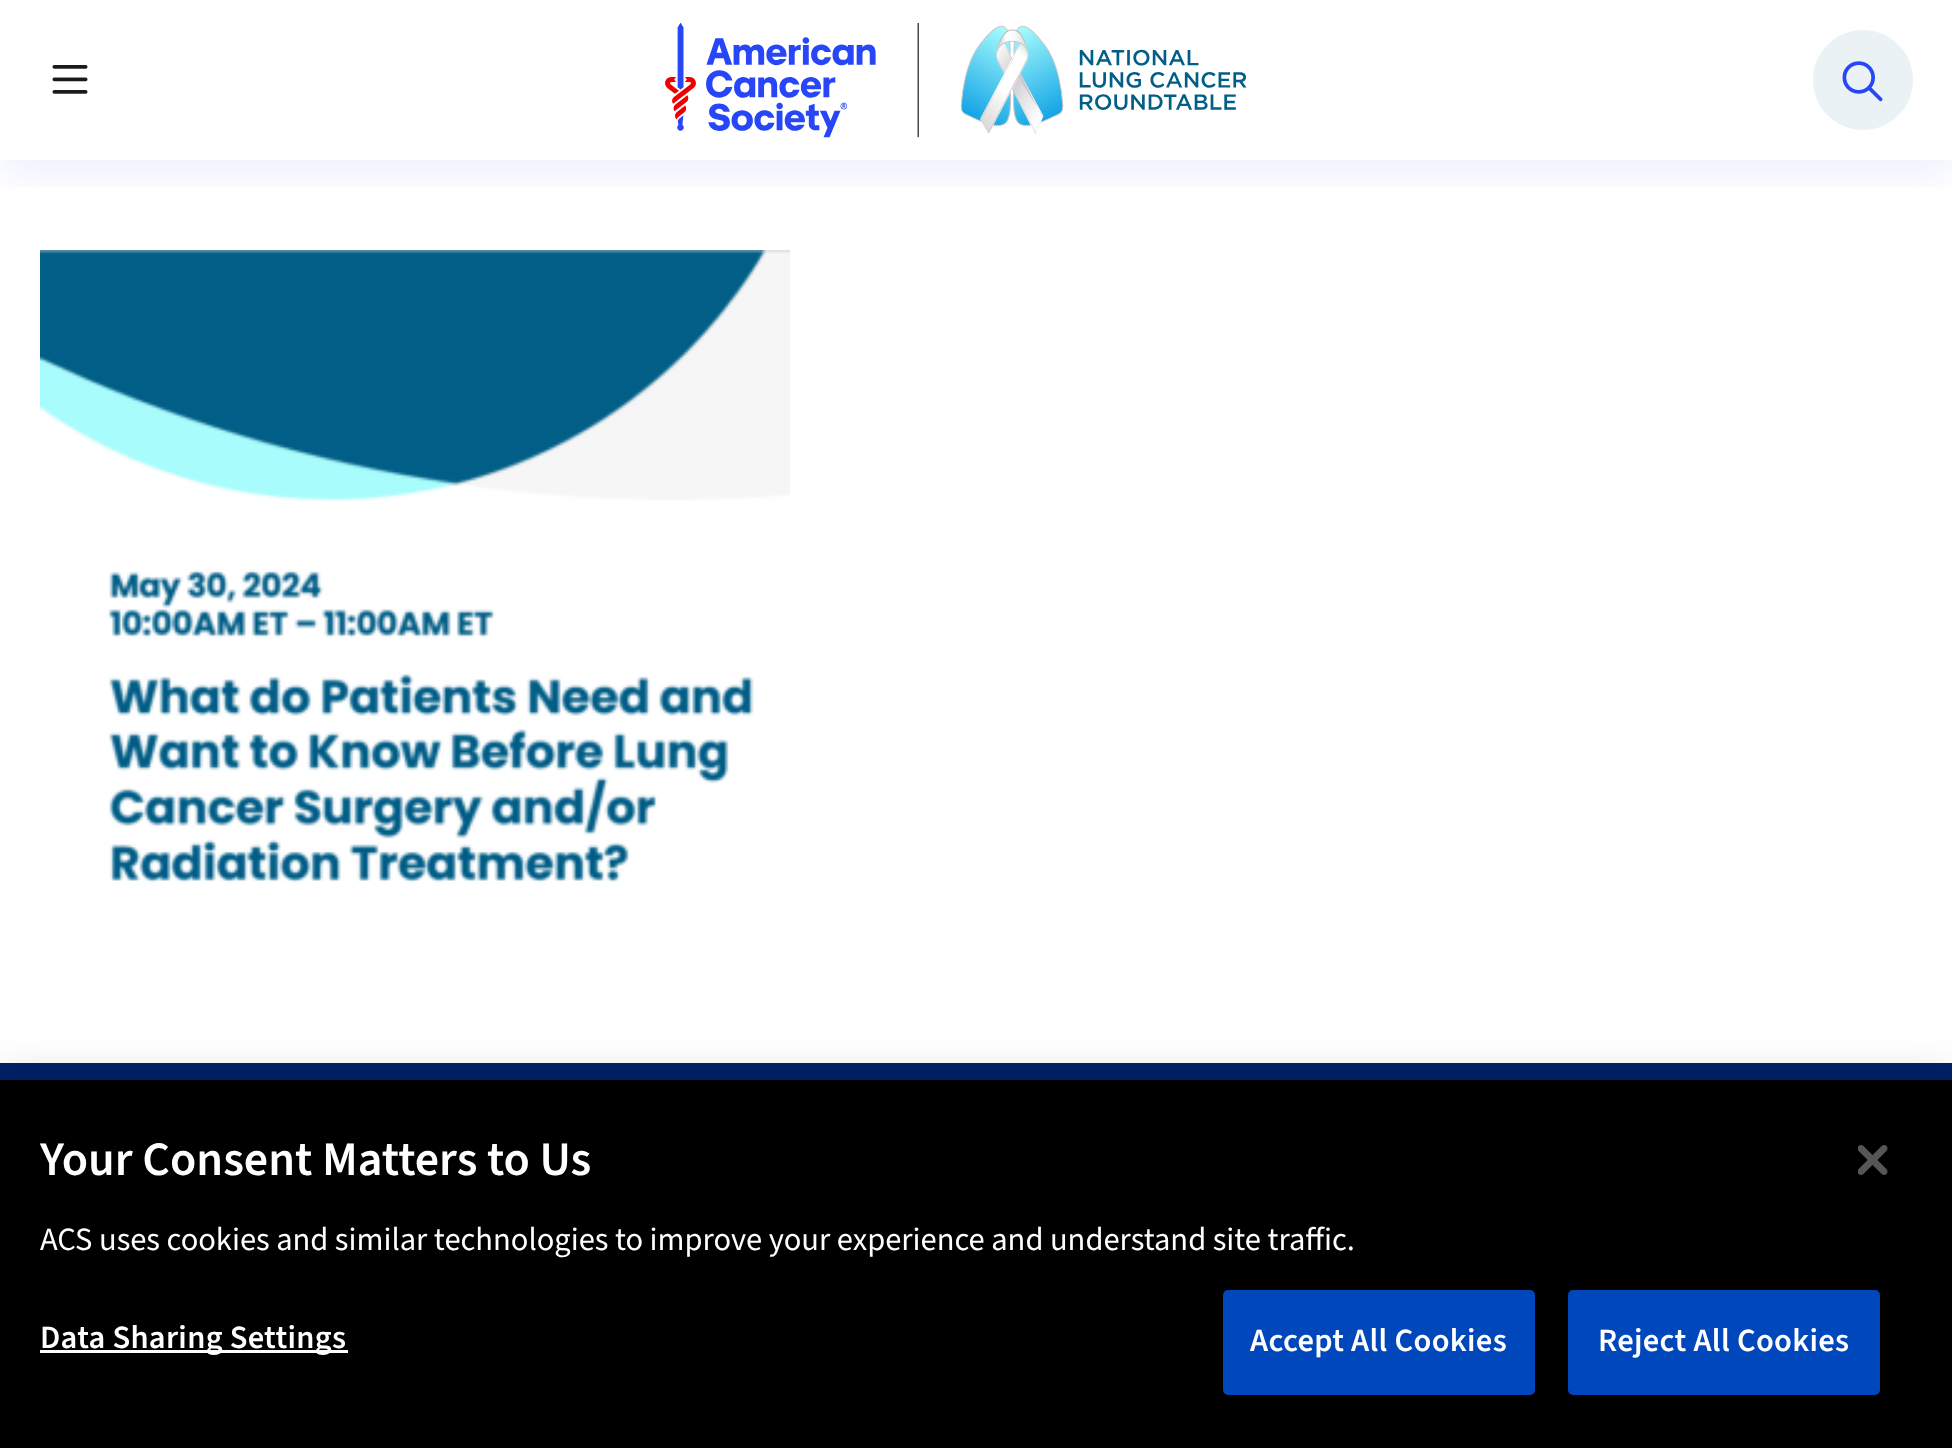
<svg xmlns="http://www.w3.org/2000/svg" width="1952" height="1448">
<defs>
<clipPath id="clip1"><rect x="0" y="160" width="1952" height="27"/></clipPath>
</defs>
<rect width="100%" height="100%" fill="#fff"/>
<g clip-path="url(#clip1)">
<rect y="10" width="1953" height="160" fill="#2746f81a" filter="blur(20px)"/>
</g>
<image x="52" y="65" width="36" height="29" href="media/1.png"/>
<image x="665" y="23" width="582" height="115" href="media/2.png"/>
<circle cx="1863" cy="80" r="50" fill="#ebf2f5"/>
<image x="1842" y="61" width="41" height="41" href="media/3.png"/>
<image x="40" y="250" width="750" height="633" href="media/4.png"/>
<rect y="1063" width="1952" height="17" fill="#012169"/>
<rect y="1080" width="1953" height="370" fill="#00000033" filter="blur(22.5px)"/>
<rect y="1080" width="1952" height="368" fill="#000"/>
<text x="40" y="1175" style="font-family:'Source Sans 3';font-size:48px;font-weight:600;fill:#fff">Your Consent Matters to Us</text>
<text x="40" y="1250" style="font-family:'Source Sans 3';font-size:32.5px;fill:#fff">ACS uses cookies and similar technologies to improve your experience and understand site traffic.</text>
<rect x="40" y="1350" width="308" height="3" fill="#fff"/>
<text x="40" y="1348" style="font-family:'Source Sans 3';font-size:32.5px;font-weight:600;letter-spacing:0.3px;fill:#fff">Data Sharing Settings</text>
<rect x="1224.5" y="1291.5" width="309" height="102" rx="3.5" fill="#0047bb" stroke="#0047bb" stroke-width="3"/>
<text x="1250" y="1351" style="font-family:'Source Sans 3';font-size:32.5px;font-weight:600;letter-spacing:0.3px;fill:#fff">Accept All Cookies</text>
<rect x="1569.5" y="1291.5" width="309" height="102" rx="3.5" fill="#0047bb" stroke="#0047bb" stroke-width="3"/>
<text x="1598" y="1351" style="font-family:'Source Sans 3';font-size:32.5px;font-weight:600;letter-spacing:0.3px;fill:#fff">Reject All Cookies</text>
<image x="1858" y="1145" width="30" height="30" href="media/5.png"/>
</svg>
